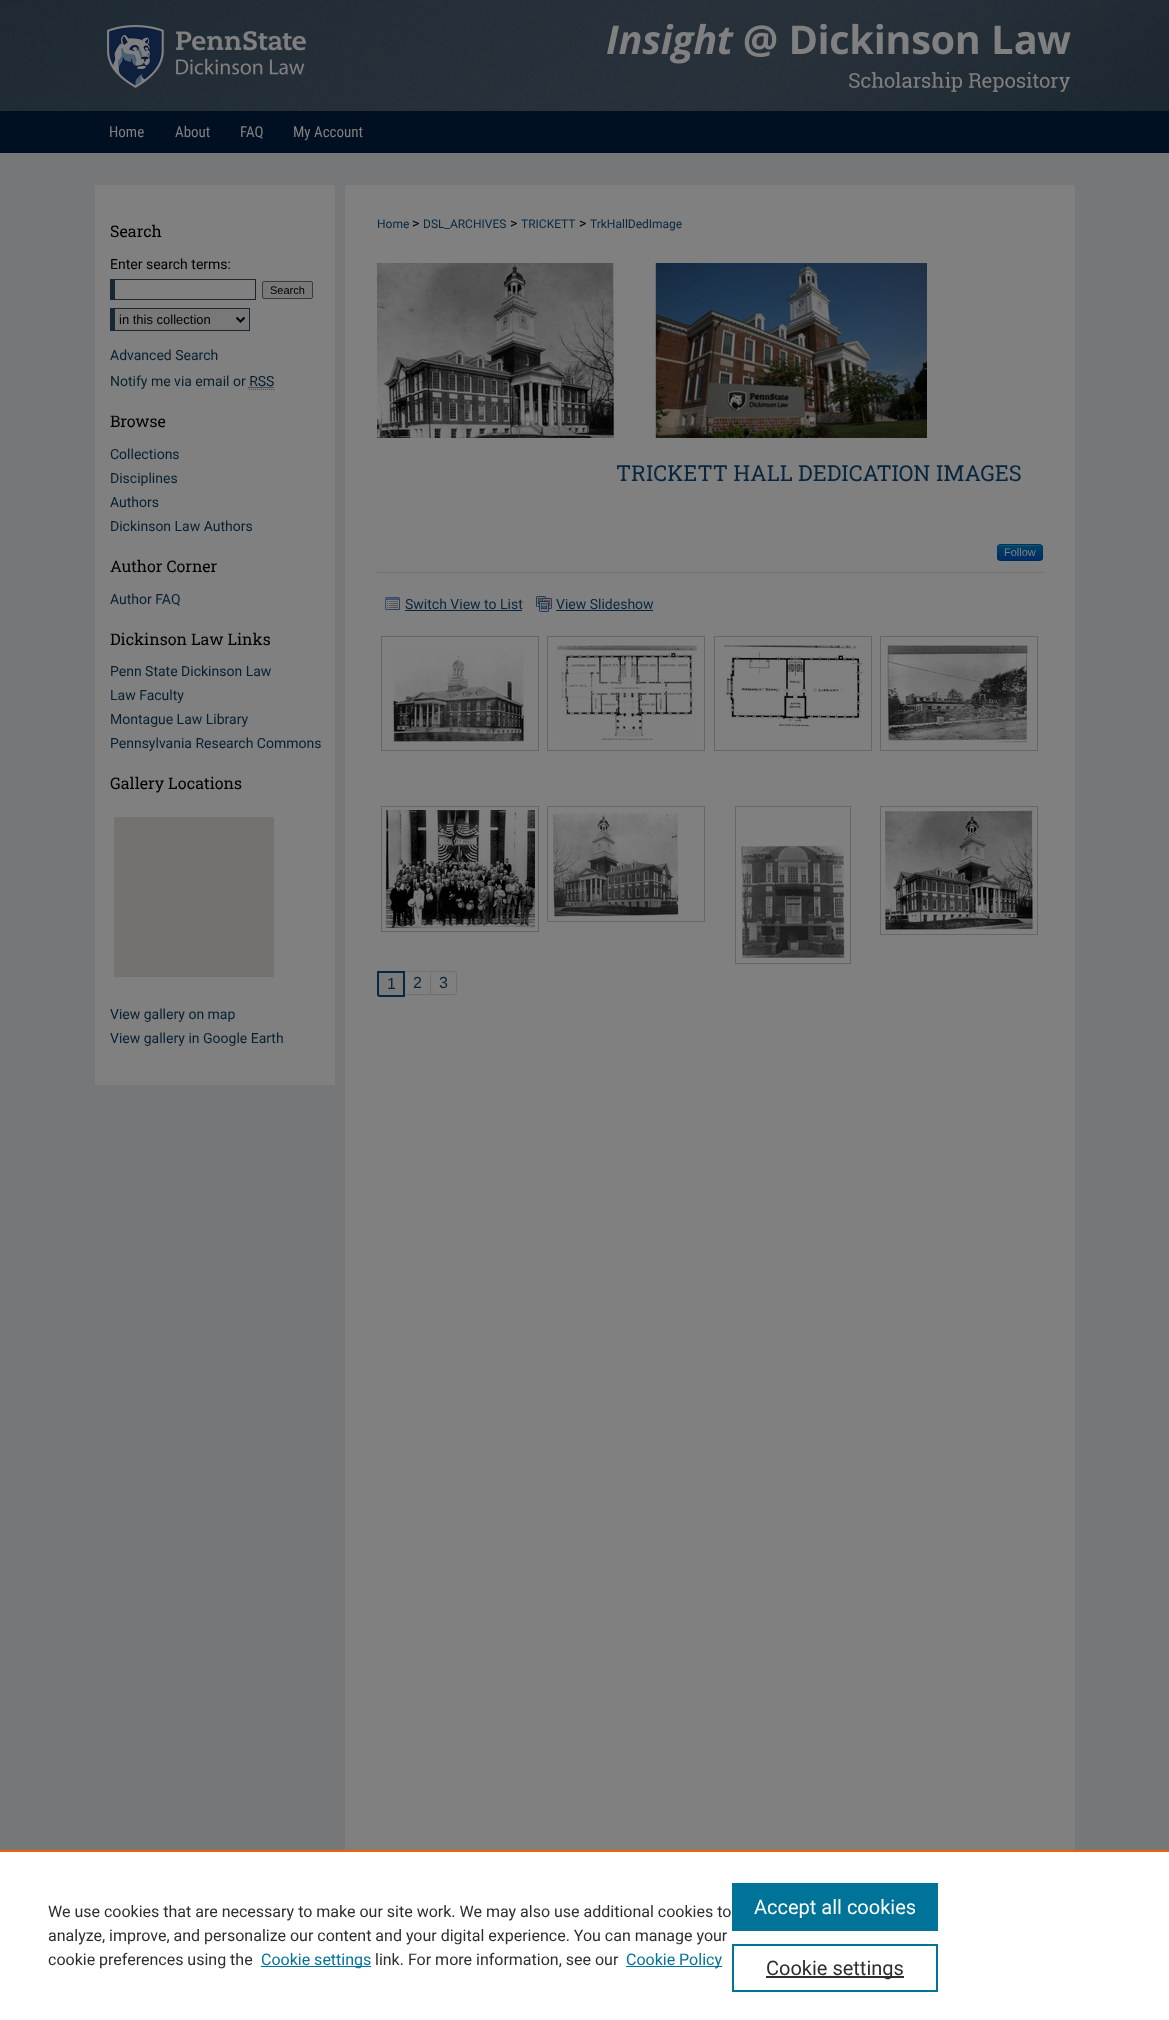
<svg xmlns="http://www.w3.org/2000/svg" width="1169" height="2020">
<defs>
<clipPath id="clip1"><rect x="997" y="544" width="46" height="17" rx="4"/></clipPath>
<linearGradient id="g1" gradientUnits="userSpaceOnUse" x1="1020" y1="545" x2="1020" y2="560"><stop offset="0" stop-color="#046"/><stop offset="1" stop-color="#002b66"/></linearGradient>
</defs>
<rect width="100%" height="100%" fill="#757778"/>
<image x="0" y="0" width="1169" height="153" href="media/1.png"/>
<image x="107" y="23" width="964" height="69" href="media/2.png"/>
<text x="109" y="137" style="font-family:Roboto Condensed;font-size:15px;fill:#808080">Home</text>
<text x="175" y="137" style="font-family:Roboto Condensed;font-size:15px;fill:#808080">About</text>
<text x="240" y="137" style="font-family:Roboto Condensed;font-size:15px;fill:#808080">FAQ</text>
<text x="293" y="137" style="font-family:Roboto Condensed;font-size:15px;fill:#808080">My Account</text>
<rect x="345" y="185" width="730" height="1665" fill="#808080"/>
<rect x="95" y="185" width="240" height="900" fill="#808080"/>
<text x="110" y="237" style="font-family:Roboto Slab;font-size:16px;fill:#000">Search</text>
<text x="110" y="269" style="font-family:Roboto;font-size:14px;fill:#000">Enter search terms:</text>
<rect x="110" y="279" width="146" height="1" fill="#192732"/>
<rect x="255" y="279" width="1" height="21" fill="#192732"/>
<rect x="110" y="299" width="146" height="1" fill="#192732"/>
<rect x="110" y="279" width="5" height="21" fill="#192732"/>
<rect x="262.5" y="281.5" width="50" height="17" rx="1.5" fill="#787878" stroke="#3b3b3b"/>
<text x="270" y="294" style="font-family:Liberation Sans;font-size:11px;fill:#000">Search</text>
<rect x="115" y="309" width="134" height="21" fill="#787878"/>
<rect x="110" y="308" width="140" height="1" fill="#192732"/>
<rect x="249" y="308" width="1" height="23" fill="#192732"/>
<rect x="110" y="330" width="140" height="1" fill="#192732"/>
<rect x="110" y="308" width="5" height="23" fill="#192732"/>
<path d="M236.5 317.5l4 4l4-4" fill="none" stroke="#000" stroke-width="2"/>
<text x="119" y="324" style="font-family:Liberation Sans;font-size:13px;fill:#000">in this collection</text>
<text x="110" y="360" style="font-family:Roboto;font-size:14px;fill:#072031">Advanced Search</text>
<text x="110" y="386" style="font-family:Roboto;font-size:14px;fill:#072031">Notify me via email or RSS</text>
<path d="M248.5 387.5h25.5" fill="none" stroke="#072031" stroke-dasharray="1 1"/>
<path d="M249 389.5h25" fill="none" stroke="#4d4d4d" stroke-dasharray="1 1"/>
<text x="110" y="427" style="font-family:Roboto Slab;font-size:16px;fill:#000">Browse</text>
<text x="110" y="459" style="font-family:Roboto;font-size:14px;fill:#072031">Collections</text>
<text x="110" y="483" style="font-family:Roboto;font-size:14px;fill:#072031">Disciplines</text>
<text x="110" y="507" style="font-family:Roboto;font-size:14px;fill:#072031">Authors</text>
<text x="110" y="531" style="font-family:Roboto;font-size:14px;fill:#072031">Dickinson Law Authors</text>
<text x="110" y="572" style="font-family:Roboto Slab;font-size:16px;fill:#000">Author Corner</text>
<text x="110" y="604" style="font-family:Roboto;font-size:14px;fill:#072031">Author FAQ</text>
<text x="110" y="645" style="font-family:Roboto Slab;font-size:16px;fill:#000">Dickinson Law Links</text>
<text x="110" y="676" style="font-family:Roboto;font-size:14px;fill:#072031">Penn State Dickinson Law</text>
<text x="110" y="700" style="font-family:Roboto;font-size:14px;fill:#072031">Law Faculty</text>
<text x="110" y="724" style="font-family:Roboto;font-size:14px;fill:#072031">Montague Law Library</text>
<text x="110" y="748" style="font-family:Roboto;font-size:14px;fill:#072031">Pennsylvania Research Commons</text>
<text x="110" y="789" style="font-family:Roboto Slab;font-size:16px;fill:#000">Gallery Locations</text>
<rect x="114" y="817" width="160" height="160" fill="#737270"/>
<text x="110" y="1019" style="font-family:Roboto;font-size:14px;fill:#072031">View gallery on map</text>
<text x="110" y="1043" style="font-family:Roboto;font-size:14px;fill:#072031">View gallery in Google Earth</text>
<text x="377" y="228" style="font-family:Roboto;font-size:12px;fill:#08273e">Home</text>
<text x="412" y="228" style="font-family:Roboto;font-size:14px;fill:#000">&gt;</text>
<text x="423" y="228" style="font-family:Roboto;font-size:12px;fill:#08273e">DSL_ARCHIVES</text>
<text x="510" y="228" style="font-family:Roboto;font-size:14px;fill:#000">&gt;</text>
<text x="521" y="228" style="font-family:Roboto;font-size:12px;fill:#08273e">TRICKETT</text>
<text x="579" y="228" style="font-family:Roboto;font-size:14px;fill:#000">&gt;</text>
<text x="590" y="228" style="font-family:Roboto;font-size:12px;fill:#08273e">TrkHallDedImage</text>
<image x="377" y="263" width="550" height="175" href="media/3.png"/>
<text x="616" y="481" style="font-family:Roboto Slab;font-size:22px;fill:#08273e">TRICKETT HALL DEDICATION IMAGES</text>
<rect x="377" y="572" width="666" height="1" fill="#6f6f6f"/>
<rect x="997" y="544" width="46" height="17" rx="4" fill="#003a66"/>
<g clip-path="url(#clip1)">
<rect x="997" y="545" width="46" height="15" fill="url(#g1)"/>
</g>
<path d="M1001 546h33c7 0 8 0 8 6v6v-7c0-7-2-6-9-6h-26c-7 0-9-1-9 6v8c0-3-2-13 3-13z" fill="#80808033"/>
<path d="M1041.5 559.5c-.5 .5-1.5 1-2.5 1h-38c-1 0-2-.5-2.5-1" fill="none" stroke="#00000040"/>
<path d="M998.5 559.5c-1.5-2-1-5-1-7c0-9 .5-8 10-8h25c9.5 0 10-1 10 8c0 2 .5 5-1 7" fill="none" stroke="#0000001a"/>
<text x="1004" y="556" style="font-family:Liberation Sans;font-size:11px;fill:#808080">Follow</text>
<image x="385" y="597" width="15" height="13" href="media/4.png"/>
<text x="405" y="609" style="font-family:Roboto;font-size:14px;fill:#08273e">Switch View to List</text>
<rect x="405" y="610" width="117" height="1" fill="#08273e"/>
<image x="536" y="596" width="16" height="16" href="media/5.png"/>
<text x="556" y="609" style="font-family:Roboto;font-size:14px;fill:#08273e">View Slideshow</text>
<rect x="556" y="610" width="97" height="1" fill="#08273e"/>
<rect x="381.5" y="636.5" width="157" height="114" fill="none" stroke="#666"/>
<image x="391" y="646" width="135" height="96" href="media/6.png"/>
<rect x="547.5" y="636.5" width="157" height="114" fill="none" stroke="#666"/>
<image x="555" y="645" width="142" height="98" href="media/7.png"/>
<rect x="714.5" y="636.5" width="157" height="114" fill="none" stroke="#666"/>
<image x="724" y="645" width="140" height="82" href="media/8.png"/>
<rect x="880.5" y="636.5" width="157" height="114" fill="none" stroke="#666"/>
<image x="887" y="645" width="141" height="98" href="media/9.png"/>
<rect x="381.5" y="806.5" width="157" height="125" fill="none" stroke="#666"/>
<image x="385" y="810" width="150" height="118" href="media/10.png"/>
<rect x="547.5" y="806.5" width="157" height="115" fill="none" stroke="#666"/>
<image x="553" y="813" width="126" height="104" href="media/11.png"/>
<rect x="735.5" y="806.5" width="115" height="157" fill="none" stroke="#666"/>
<image x="741" y="845" width="104" height="113" href="media/12.png"/>
<rect x="880.5" y="806.5" width="157" height="128" fill="none" stroke="#666"/>
<image x="884" y="810" width="150" height="121" href="media/13.png"/>
<path d="M378 972h26v24h-24c-1 0-2-1-2-2z" fill="#7b7b7b" stroke="#08273e" stroke-width="2"/>
<text x="387" y="989" style="font-family:Liberation Sans;font-size:16px;fill:#08273e">1</text>
<rect x="405" y="971" width="26" height="1" fill="#6f6f6f"/>
<rect x="430" y="971" width="1" height="24" fill="#6f6f6f"/>
<rect x="405" y="994" width="26" height="1" fill="#6f6f6f"/>
<text x="413" y="988" style="font-family:Liberation Sans;font-size:16px;fill:#08273e">2</text>
<path d="M431 971h23c1.5 0 3 1.5 3 3v18c0 1.5-1.5 3-3 3h-23zm0 1h23c1 0 2 1 2 2v18c0 1-1 2-2 2h-23z" fill="#6f6f6f" fill-rule="evenodd"/>
<text x="439" y="988" style="font-family:Liberation Sans;font-size:16px;fill:#08273e">3</text>
<rect y="1852" width="1169" height="168" fill="#fff"/>
<rect y="1850" width="1169" height="2" fill="#eb6500"/>
<text x="48" y="1917" style="font-family:Roboto;font-size:16px;fill:#2e2e2e">We use cookies that are necessary to make our site work. We may also use additional cookies to</text>
<text x="48" y="1941" style="font-family:Roboto;font-size:16px;fill:#2e2e2e">analyze, improve, and personalize our content and your digital experience. You can manage your</text>
<text x="48" y="1965" style="font-family:Roboto;font-size:16px;fill:#2e2e2e">cookie preferences using the</text>
<rect x="261" y="1966" width="110" height="1" fill="#007398"/>
<text x="261" y="1965" style="font-family:Roboto;font-size:16px;fill:#007398">Cookie settings</text>
<text x="375" y="1965" style="font-family:Roboto;font-size:16px;fill:#2e2e2e">link. For more information, see our</text>
<rect x="626" y="1966" width="96" height="1" fill="#007398"/>
<text x="626" y="1965" style="font-family:Roboto;font-size:16px;fill:#007398">Cookie Policy</text>
<rect x="732" y="1883" width="206" height="48" fill="#007398"/>
<text x="754" y="1914" style="font-family:Roboto;font-size:20px;fill:#fff">Accept all cookies</text>
<rect x="733" y="1945" width="204" height="46" fill="none" stroke="#007398" stroke-width="2"/>
<rect x="766" y="1976" width="138" height="2" fill="#2e2e2e"/>
<text x="766" y="1975" style="font-family:Roboto;font-size:20px;fill:#2e2e2e">Cookie settings</text>
</svg>
